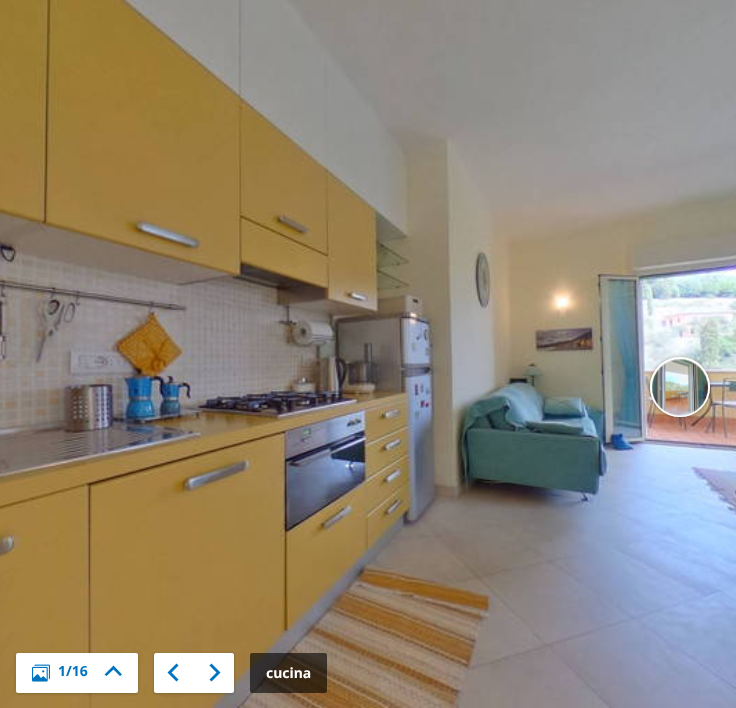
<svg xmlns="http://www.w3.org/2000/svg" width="736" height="708">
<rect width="100%" height="100%" fill="#fff"/>
<image x="0" y="0" width="736" height="708" href="media/1.png"/>
<circle cx="680" cy="387" r="30" fill="#fff"/>
<rect x="649" y="356" width="62" height="62" rx="31" fill="#00000033" filter="blur(1.5px)"/>
<circle cx="680" cy="387" r="29" fill="#ffffff73" stroke="#fff" stroke-width="2"/>
<image x="652" y="359" width="57" height="57" href="media/2.png"/>
<rect x="16" y="654" width="122" height="40" rx="2" fill="#00000033" filter="blur(1.5px)"/>
<rect x="16" y="653" width="122" height="40" rx="2" fill="#fff"/>
<image x="32" y="664" width="18" height="18" href="media/3.png"/>
<text x="58" y="676" style="font-family:Noto Sans;font-size:14px;font-weight:bold;fill:#0074c1">1/16</text>
<path d="M106.5 676l-2-1.5l9-9l8.5 9l-2 1.5l-6.5-6.5z" fill="#0074c1" fill-rule="evenodd"/>
<rect x="154" y="654" width="80" height="40" fill="#00000033" filter="blur(1.5px)"/>
<path d="M156 653h38v40h-38c-1 0-2-1-2-2v-36c0-1 1-2 2-2z" fill="#fff"/>
<path d="M178.5 679.5l-2 2l-9-9l9-9l2 2l-7 7z" fill="#0074c1" fill-rule="evenodd"/>
<path d="M194 653h38c1 0 2 1 2 2v36c0 1-1 2-2 2h-38z" fill="#fff"/>
<path d="M209.5 665.5l2-2l9 9l-9 9l-2-2l7-7z" fill="#0074c1" fill-rule="evenodd"/>
<rect x="250" y="653" width="77" height="40" rx="2" fill="#00000099"/>
<text x="266" y="678" style="font-family:Noto Sans;font-size:14px;font-weight:bold;fill:#fff">cucina</text>
</svg>
